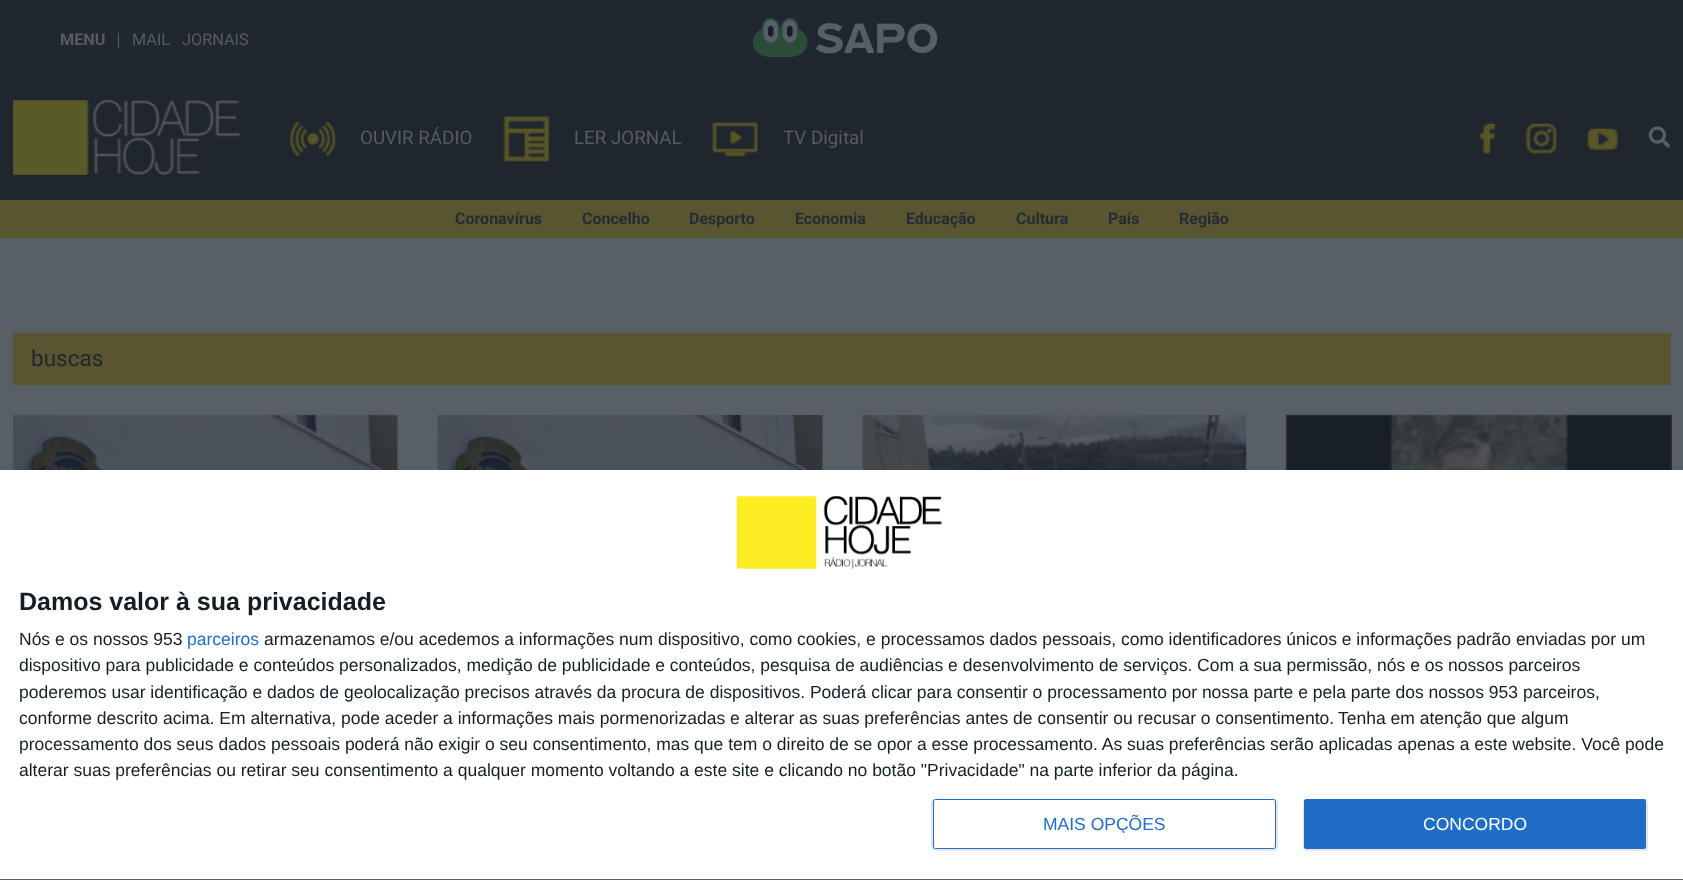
<svg xmlns="http://www.w3.org/2000/svg" width="1683" height="880">
<defs>
<clipPath id="clip1"><rect x="1044" y="815" width="122" height="18"/></clipPath>
</defs>
<rect width="100%" height="100%" fill="#595f67"/>
<rect width="1683" height="75" fill="#212730"/>
<text x="60" y="45" style="font-family:Roboto;font-size:16.25px;font-weight:bold;fill:#555b63">MENU</text>
<rect x="118" y="33" width="1" height="15" fill="#555b63"/>
<text x="132" y="45" style="font-family:Roboto;font-size:16.25px;fill:#555b63">MAIL</text>
<text x="182" y="45" style="font-family:Roboto;font-size:16.25px;fill:#555b63">JORNAIS</text>
<image x="752" y="18" width="186" height="39" href="media/1.png"/>
<rect y="75" width="1683" height="125" fill="#20262e"/>
<image x="13" y="100" width="228" height="75" href="media/2.png"/>
<image x="289" y="121" width="47" height="36" href="media/3.png"/>
<text x="360" y="144" style="font-family:Roboto;font-size:18.75px;fill:#555b63">OUVIR RÁDIO</text>
<image x="503" y="116" width="47" height="46" href="media/4.png"/>
<text x="574" y="144" style="font-family:Roboto;font-size:18.75px;fill:#555b63">LER JORNAL</text>
<image x="712" y="122" width="46" height="35" href="media/5.png"/>
<text x="783" y="144" style="font-family:Roboto;font-size:18.75px;fill:#555b63">TV Digital</text>
<image x="1479" y="123" width="17" height="31" href="media/6.png"/>
<image x="1525" y="123" width="32" height="31" href="media/7.png"/>
<image x="1586" y="128" width="32" height="23" href="media/8.png"/>
<image x="1648" y="126" width="22" height="22" href="media/9.png"/>
<rect y="200" width="1683" height="38" fill="#595530"/>
<text x="455" y="224" style="font-family:Roboto;font-size:16px;font-weight:bold;fill:#262c34">Coronavírus</text>
<text x="582" y="224" style="font-family:Roboto;font-size:16px;font-weight:bold;fill:#262c34">Concelho</text>
<text x="689" y="224" style="font-family:Roboto;font-size:16px;font-weight:bold;fill:#262c34">Desporto</text>
<text x="795" y="224" style="font-family:Roboto;font-size:16px;font-weight:bold;fill:#262c34">Economia</text>
<text x="906" y="224" style="font-family:Roboto;font-size:16px;font-weight:bold;fill:#262c34">Educação</text>
<text x="1016" y="224" style="font-family:Roboto;font-size:16px;font-weight:bold;fill:#262c34">Cultura</text>
<text x="1108" y="224" style="font-family:Roboto;font-size:16px;font-weight:bold;fill:#262c34">País</text>
<text x="1179" y="224" style="font-family:Roboto;font-size:16px;font-weight:bold;fill:#262c34">Região</text>
<rect x="13" y="333" width="1658" height="52" fill="#595530"/>
<text x="31" y="366" style="font-family:Roboto;font-size:22.5px;fill:#20262e">buscas</text>
<image x="13" y="414" width="385" height="56" href="media/10.png"/>
<image x="437" y="415" width="386" height="55" href="media/11.png"/>
<image x="862" y="415" width="385" height="55" href="media/12.png"/>
<image x="1285" y="414" width="387" height="56" href="media/13.png"/>
<rect y="470" width="1683" height="409" fill="#fff"/>
<image x="736" y="496" width="206" height="73" href="media/14.png"/>
<text x="19" y="610" style="font-family:Liberation Sans;font-size:25px;font-weight:bold;fill:#141e23">Damos valor à sua privacidade</text>
<text x="19" y="645" style="font-family:Liberation Sans;font-size:17.5px;fill:#141e23">Nós e os nossos 953</text>
<text x="187" y="645" style="font-family:Liberation Sans;font-size:17.5px;fill:#206dc5">parceiros</text>
<text x="264" y="645" style="font-family:Liberation Sans;font-size:17.5px;fill:#141e23">armazenamos e/ou acedemos a informações num dispositivo, como cookies, e processamos dados pessoais, como identificadores únicos e informações padrão enviadas por um</text>
<text x="19" y="671" style="font-family:Liberation Sans;font-size:17.5px;fill:#141e23">dispositivo para publicidade e conteúdos personalizados, medição de publicidade e conteúdos, pesquisa de audiências e desenvolvimento de serviços. Com a sua permissão, nós e os nossos parceiros</text>
<text x="19" y="698" style="font-family:Liberation Sans;font-size:17.5px;fill:#141e23">poderemos usar identificação e dados de geolocalização precisos através da procura de dispositivos. Poderá clicar para consentir o processamento por nossa parte e pela parte dos nossos 953 parceiros,</text>
<text x="19" y="724" style="font-family:Liberation Sans;font-size:17.5px;fill:#141e23">conforme descrito acima. Em alternativa, pode aceder a informações mais pormenorizadas e alterar as suas preferências antes de consentir ou recusar o consentimento.</text>
<text x="1338" y="724" style="font-family:Liberation Sans;font-size:17.5px;fill:#141e23">Tenha em atenção que algum</text>
<text x="19" y="750" style="font-family:Liberation Sans;font-size:17.5px;fill:#141e23">processamento dos seus dados pessoais poderá não exigir o seu consentimento, mas que tem o direito de se opor a esse processamento. As suas preferências serão aplicadas apenas a este website. Você pode</text>
<text x="19" y="776" style="font-family:Liberation Sans;font-size:17.5px;fill:#141e23">alterar suas preferências ou retirar seu consentimento a qualquer momento voltando a este site e clicando no botão "Privacidade" na parte inferior da página.</text>
<rect x="931" y="799" width="347" height="52" rx="4" fill="#0000001a" filter="blur(0.5px)"/>
<rect x="933.5" y="799.5" width="342" height="49" rx="2" fill="#fff" stroke="#206dc5"/>
<g clip-path="url(#clip1)">
<text x="1043" y="830" style="font-family:Liberation Sans;font-size:17.5px;fill:#206dc5">MAIS OPÇÕES</text>
</g>
<rect x="1303" y="799" width="345" height="52" rx="4" fill="#0000001a" filter="blur(0.5px)"/>
<rect x="1304" y="799" width="342" height="50" rx="2.5" fill="#206dc5"/>
<text x="1423" y="830" style="font-family:Liberation Sans;font-size:17.5px;fill:#fff">CONCORDO</text>
</svg>
